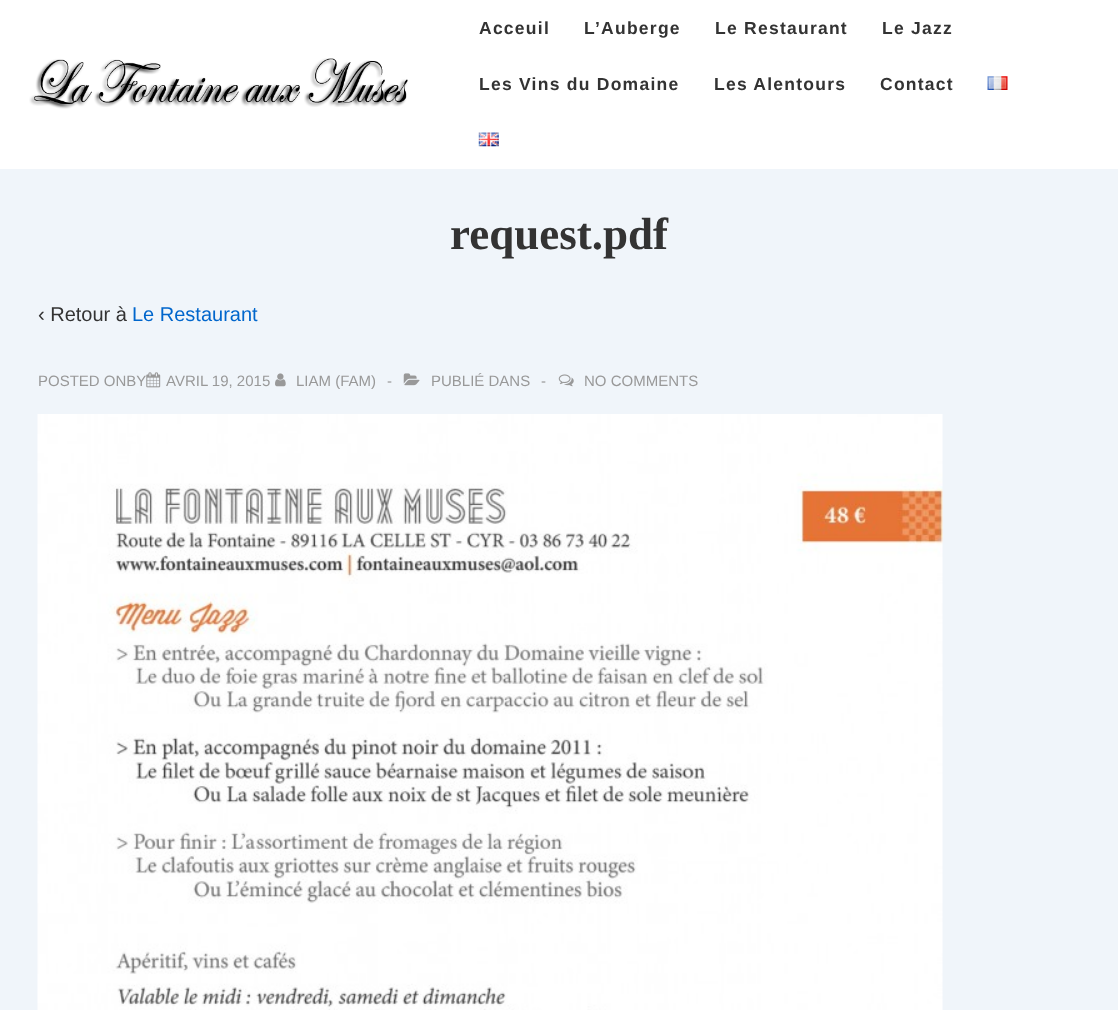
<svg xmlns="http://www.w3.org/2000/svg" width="1118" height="1010">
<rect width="100%" height="100%" fill="#f0f5fa"/>
<rect width="1118" height="169" fill="#fff"/>
<image x="29" y="58" width="379" height="51" href="media/1.png"/>
<text x="479" y="34" style="font-family:Liberation Sans;font-size:17.5px;font-weight:bold;letter-spacing:1.25px;fill:#333">Acceuil</text>
<text x="584" y="34" style="font-family:Liberation Sans;font-size:17.5px;font-weight:bold;letter-spacing:1.25px;fill:#333">L’Auberge</text>
<text x="715" y="34" style="font-family:Liberation Sans;font-size:17.5px;font-weight:bold;letter-spacing:1.25px;fill:#333">Le Restaurant</text>
<text x="882" y="34" style="font-family:Liberation Sans;font-size:17.5px;font-weight:bold;letter-spacing:1.25px;fill:#333">Le Jazz</text>
<text x="479" y="90" style="font-family:Liberation Sans;font-size:17.5px;font-weight:bold;letter-spacing:1.25px;fill:#333">Les Vins du Domaine</text>
<text x="714" y="90" style="font-family:Liberation Sans;font-size:17.5px;font-weight:bold;letter-spacing:1.25px;fill:#333">Les Alentours</text>
<text x="880" y="90" style="font-family:Liberation Sans;font-size:17.5px;font-weight:bold;letter-spacing:1.25px;fill:#333">Contact</text>
<image x="987" y="76" width="21" height="14" href="media/2.png"/>
<image x="478" y="132" width="21" height="15" href="media/3.png"/>
<text x="450" y="249" style="font-family:Liberation Serif;font-size:45px;font-weight:bold;fill:#333">request.pdf</text>
<text x="38" y="321" style="font-family:Liberation Sans;font-size:20px;fill:#333">‹ Retour à</text>
<text x="132" y="321" style="font-family:Liberation Sans;font-size:20px;fill:#06c">Le Restaurant</text>
<text x="38" y="386" style="font-family:Liberation Sans;font-size:15px;fill:#999">POSTED ONBY</text>
<image x="146" y="372" width="15" height="16" href="media/4.png"/>
<text x="166" y="386" style="font-family:Liberation Sans;font-size:15px;fill:#999">AVRIL 19, 2015</text>
<image x="275" y="373" width="11" height="14" href="media/5.png"/>
<text x="296" y="386" style="font-family:Liberation Sans;font-size:15px;fill:#999">LIAM (FAM)</text>
<text x="387" y="386" style="font-family:Liberation Sans;font-size:15px;fill:#999">-</text>
<image x="403" y="373" width="17" height="13" href="media/6.png"/>
<text x="431" y="386" style="font-family:Liberation Sans;font-size:15px;fill:#999">PUBLIÉ DANS</text>
<text x="541" y="386" style="font-family:Liberation Sans;font-size:15px;fill:#999">-</text>
<image x="558" y="374" width="16" height="13" href="media/7.png"/>
<text x="584" y="386" style="font-family:Liberation Sans;font-size:15px;fill:#999">NO COMMENTS</text>
<image x="37" y="414" width="906" height="596" href="media/8.png"/>
</svg>
